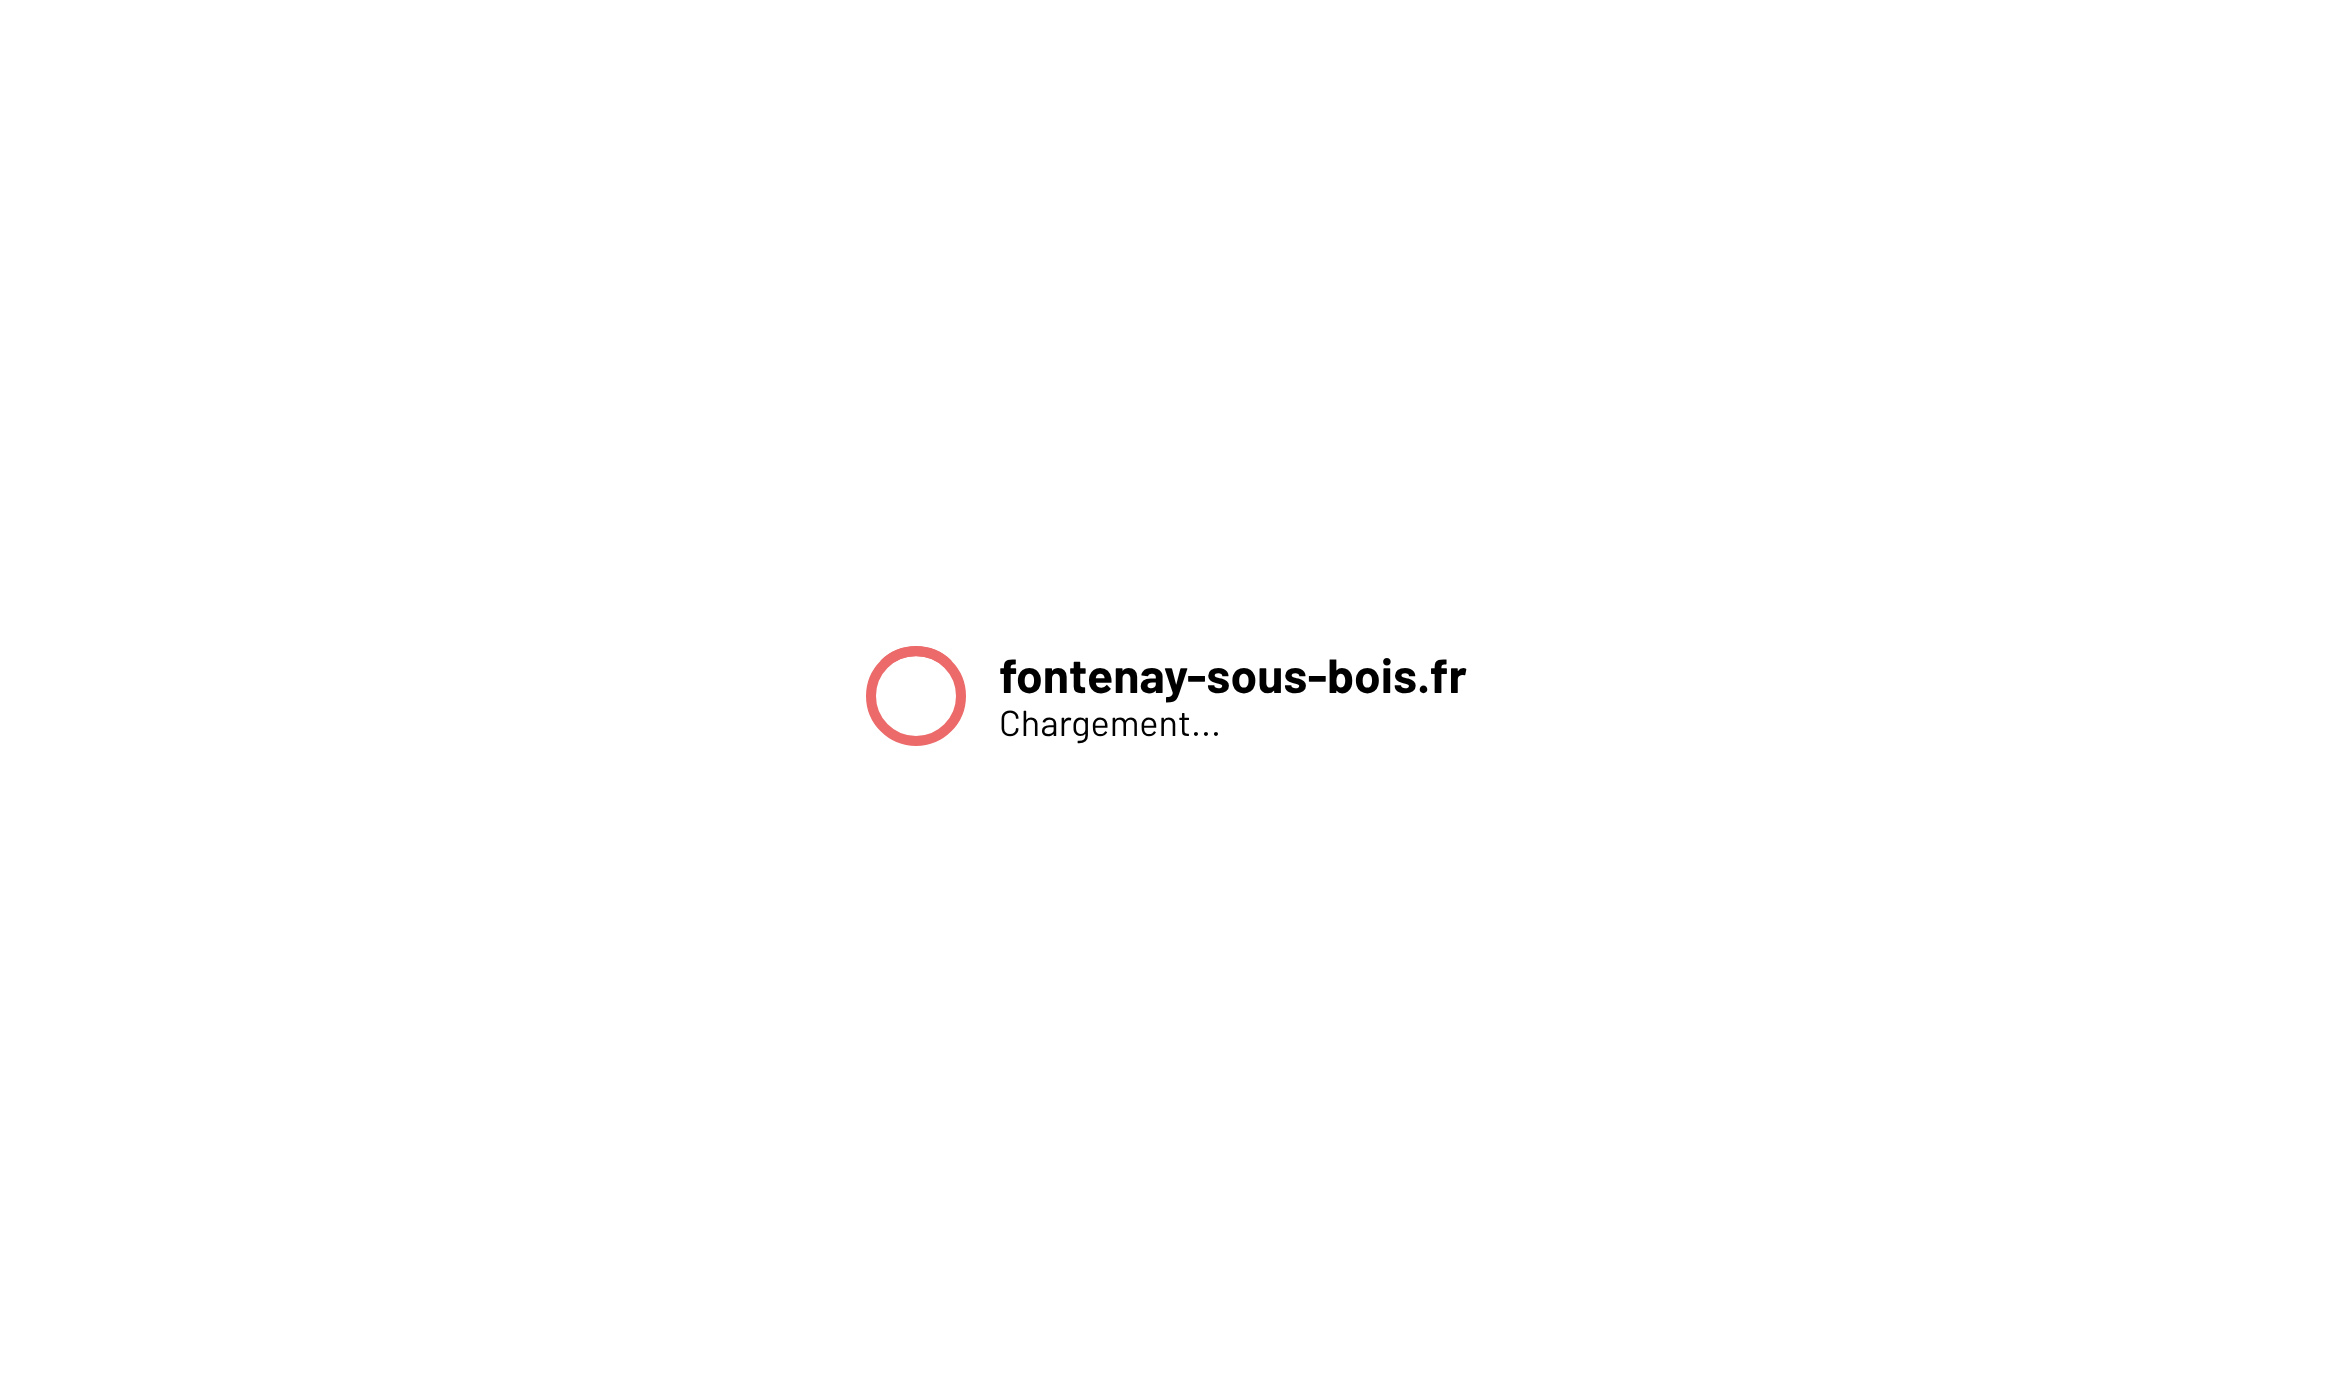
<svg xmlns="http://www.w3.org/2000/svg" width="2331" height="1389">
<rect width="100%" height="100%" fill="#fff"/>
<circle cx="916" cy="696" r="45" fill="none" stroke="#ec6a6a" stroke-width="10"/>
<path d="M884 664c17.5-17 46.5-17 64 0" fill="none" stroke="#ec6a6a" stroke-width="10"/>
<text x="999" y="693" style="font-family:Barlow;font-size:48px;font-weight:bold;fill:#000">fontenay-sous-bois.fr</text>
<text x="999" y="736" style="font-family:Barlow;font-size:36px;fill:#000">Chargement...</text>
</svg>
